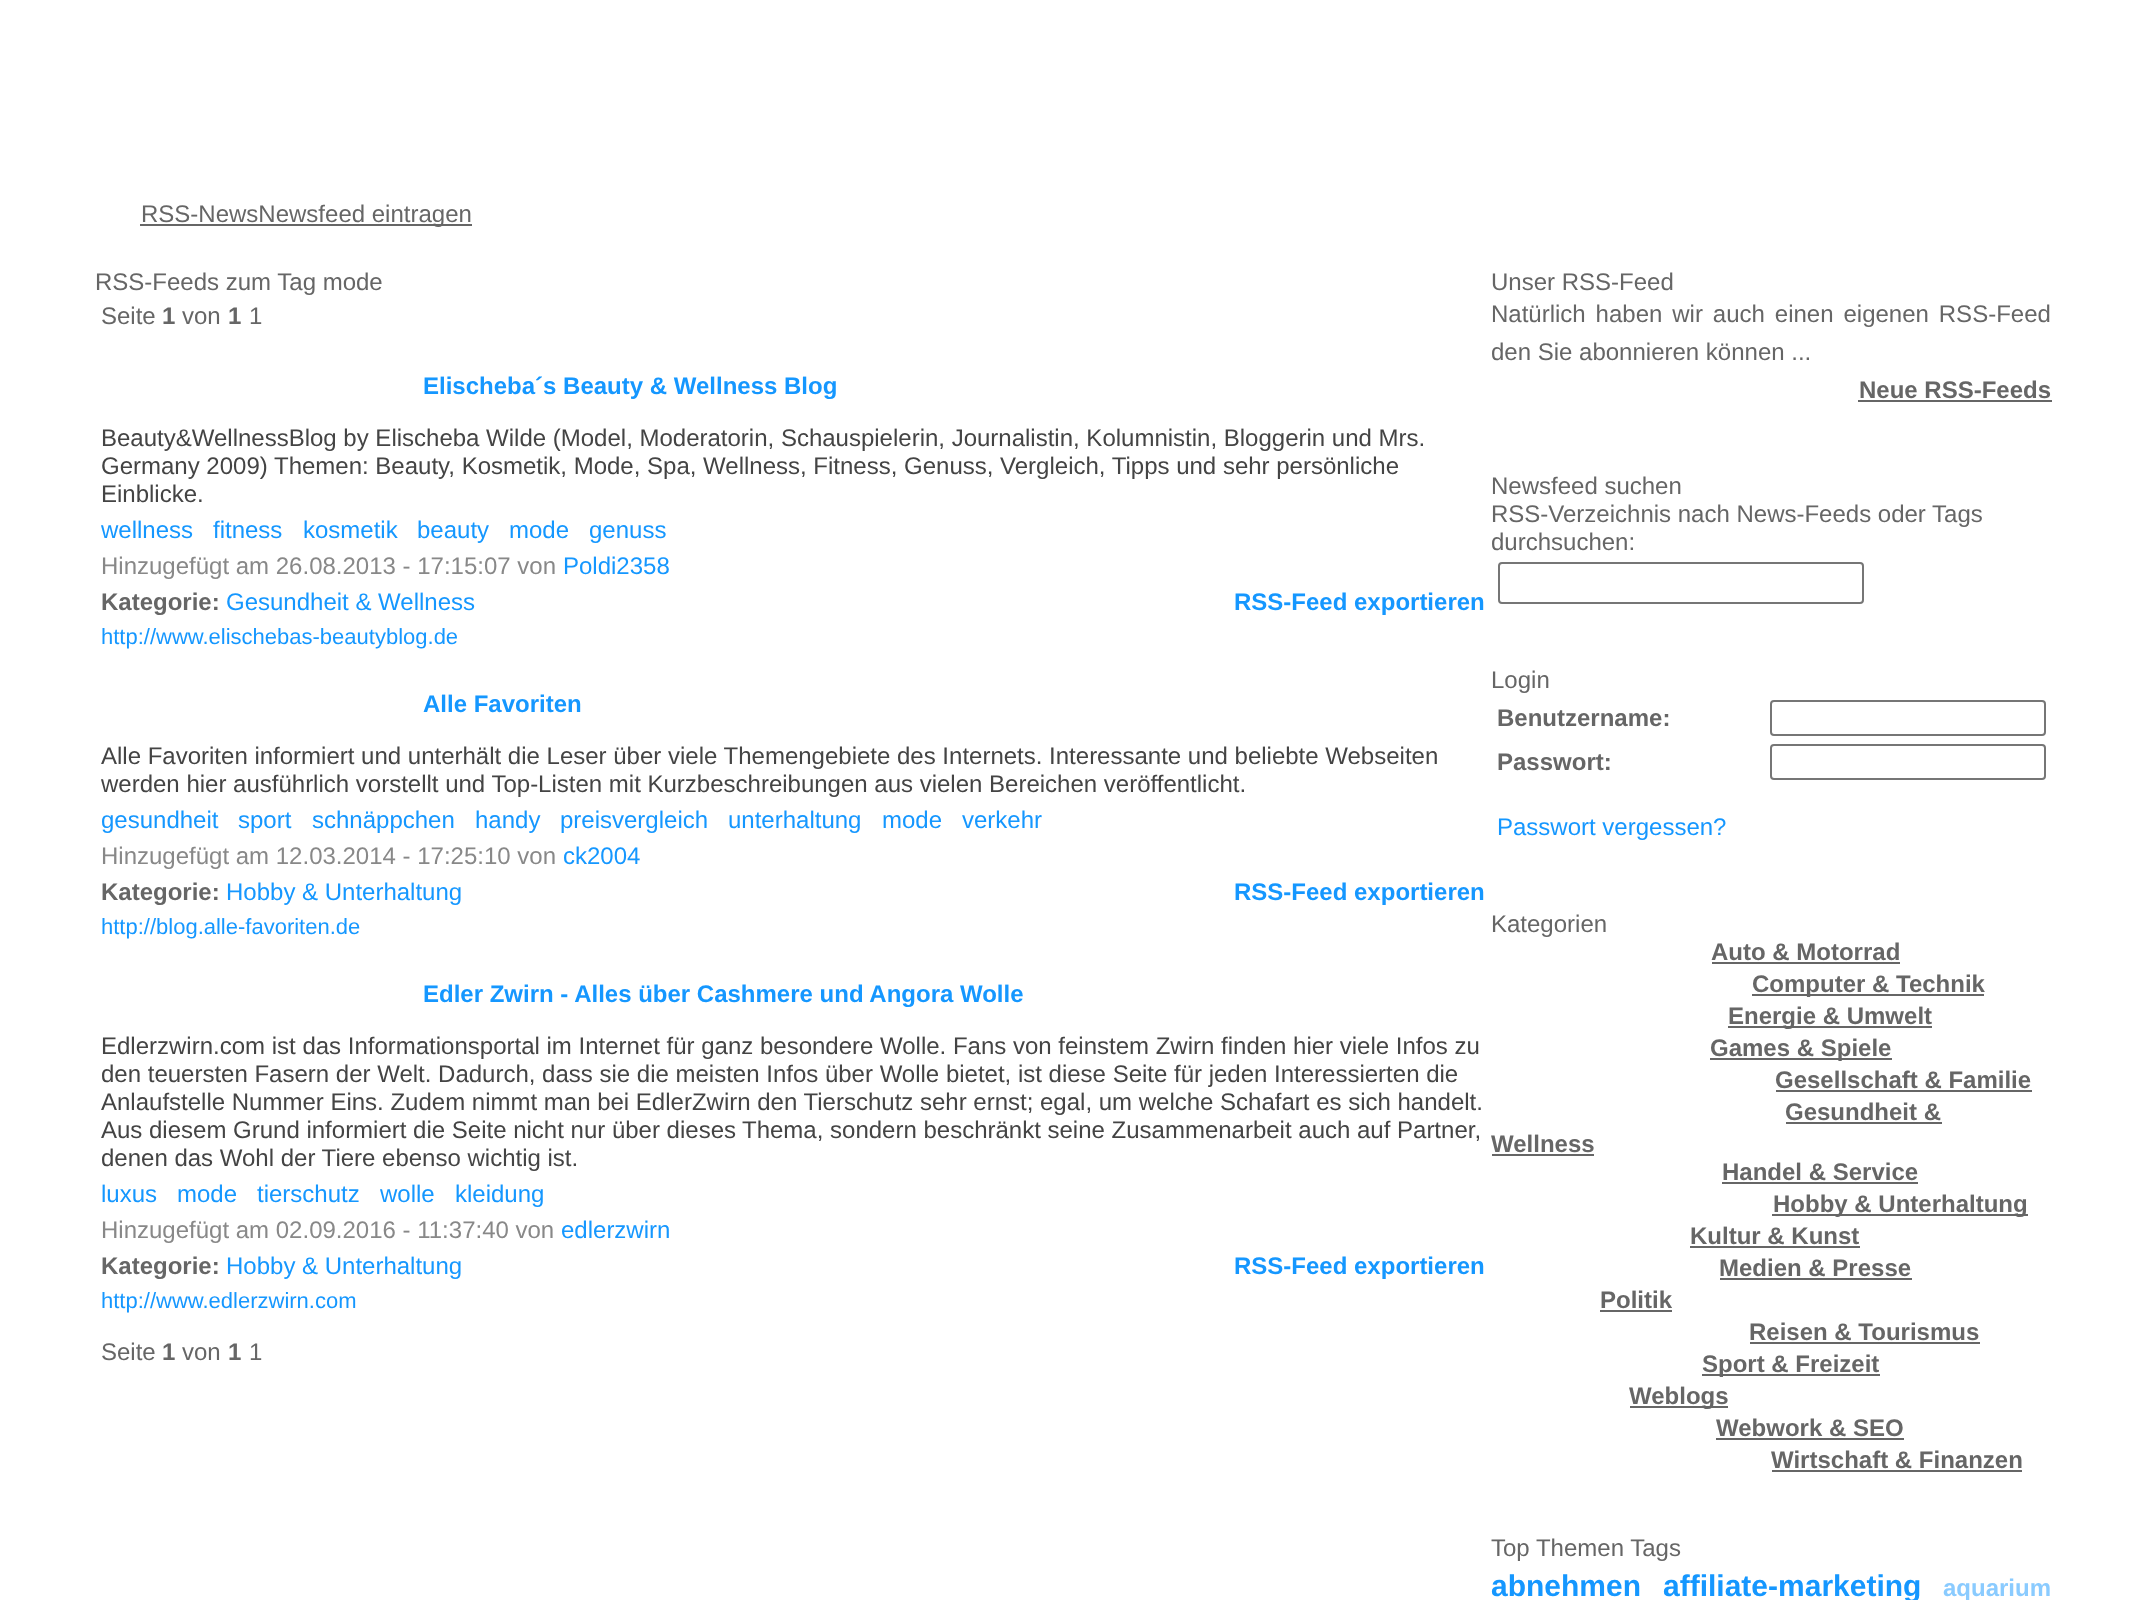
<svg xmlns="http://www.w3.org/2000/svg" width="2146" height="1600">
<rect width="100%" height="100%" fill="#fff"/>
<rect x="140" y="224" width="332" height="2" fill="#666"/>
<text x="141" y="222" style="font-family:Liberation Sans;font-size:24px;fill:#666">RSS-NewsNewsfeed eintragen</text>
<text x="95" y="290" style="font-family:Liberation Sans;font-size:24px;fill:#666">RSS-Feeds zum Tag mode</text>
<text x="101" y="324" style="font-family:Liberation Sans;font-size:24px;fill:#666">Seite</text>
<text x="162" y="324" style="font-family:Liberation Sans;font-size:24px;font-weight:bold;fill:#666">1</text>
<text x="182" y="324" style="font-family:Liberation Sans;font-size:24px;fill:#666">von</text>
<text x="228" y="324" style="font-family:Liberation Sans;font-size:24px;font-weight:bold;fill:#666">1</text>
<text x="249" y="324" style="font-family:Liberation Sans;font-size:24px;fill:#666">1</text>
<text x="423" y="394" style="font-family:Liberation Sans;font-size:24px;font-weight:bold;fill:#1597ff">Elischeba´s Beauty &amp; Wellness Blog</text>
<text x="101" y="446" style="font-family:Liberation Sans;font-size:24px;fill:#444">Beauty&amp;WellnessBlog by Elischeba Wilde (Model, Moderatorin, Schauspielerin, Journalistin, Kolumnistin, Bloggerin und Mrs.</text>
<text x="101" y="474" style="font-family:Liberation Sans;font-size:24px;fill:#444">Germany 2009) Themen: Beauty, Kosmetik, Mode, Spa, Wellness, Fitness, Genuss, Vergleich, Tipps und sehr persönliche</text>
<text x="101" y="502" style="font-family:Liberation Sans;font-size:24px;fill:#444">Einblicke.</text>
<text x="101" y="538" style="font-family:Liberation Sans;font-size:24px;fill:#1597ff">wellness</text>
<text x="213" y="538" style="font-family:Liberation Sans;font-size:24px;fill:#1597ff">fitness</text>
<text x="303" y="538" style="font-family:Liberation Sans;font-size:24px;fill:#1597ff">kosmetik</text>
<text x="417" y="538" style="font-family:Liberation Sans;font-size:24px;fill:#1597ff">beauty</text>
<text x="509" y="538" style="font-family:Liberation Sans;font-size:24px;fill:#1597ff">mode</text>
<text x="589" y="538" style="font-family:Liberation Sans;font-size:24px;fill:#1597ff">genuss</text>
<text x="101" y="574" style="font-family:Liberation Sans;font-size:24px;fill:#888">Hinzugefügt am 26.08.2013 - 17:15:07 von</text>
<text x="563" y="574" style="font-family:Liberation Sans;font-size:24px;fill:#1597ff">Poldi2358</text>
<text x="101" y="610" style="font-family:Liberation Sans;font-size:24px;font-weight:bold;fill:#666">Kategorie:</text>
<text x="226" y="610" style="font-family:Liberation Sans;font-size:24px;fill:#1597ff">Gesundheit &amp; Wellness</text>
<text x="1234" y="610" style="font-family:Liberation Sans;font-size:24px;font-weight:bold;fill:#1597ff">RSS-Feed exportieren</text>
<text x="101" y="644" style="font-family:Liberation Sans;font-size:22px;fill:#1597ff">http://www.elischebas-beautyblog.de</text>
<text x="423" y="712" style="font-family:Liberation Sans;font-size:24px;font-weight:bold;fill:#1597ff">Alle Favoriten</text>
<text x="101" y="764" style="font-family:Liberation Sans;font-size:24px;fill:#444">Alle Favoriten informiert und unterhält die Leser über viele Themengebiete des Internets. Interessante und beliebte Webseiten</text>
<text x="101" y="792" style="font-family:Liberation Sans;font-size:24px;fill:#444">werden hier ausführlich vorstellt und Top-Listen mit Kurzbeschreibungen aus vielen Bereichen veröffentlicht.</text>
<text x="101" y="828" style="font-family:Liberation Sans;font-size:24px;fill:#1597ff">gesundheit</text>
<text x="238" y="828" style="font-family:Liberation Sans;font-size:24px;fill:#1597ff">sport</text>
<text x="312" y="828" style="font-family:Liberation Sans;font-size:24px;fill:#1597ff">schnäppchen</text>
<text x="475" y="828" style="font-family:Liberation Sans;font-size:24px;fill:#1597ff">handy</text>
<text x="560" y="828" style="font-family:Liberation Sans;font-size:24px;fill:#1597ff">preisvergleich</text>
<text x="728" y="828" style="font-family:Liberation Sans;font-size:24px;fill:#1597ff">unterhaltung</text>
<text x="882" y="828" style="font-family:Liberation Sans;font-size:24px;fill:#1597ff">mode</text>
<text x="962" y="828" style="font-family:Liberation Sans;font-size:24px;fill:#1597ff">verkehr</text>
<text x="101" y="864" style="font-family:Liberation Sans;font-size:24px;fill:#888">Hinzugefügt am 12.03.2014 - 17:25:10 von</text>
<text x="563" y="864" style="font-family:Liberation Sans;font-size:24px;fill:#1597ff">ck2004</text>
<text x="101" y="900" style="font-family:Liberation Sans;font-size:24px;font-weight:bold;fill:#666">Kategorie:</text>
<text x="226" y="900" style="font-family:Liberation Sans;font-size:24px;fill:#1597ff">Hobby &amp; Unterhaltung</text>
<text x="1234" y="900" style="font-family:Liberation Sans;font-size:24px;font-weight:bold;fill:#1597ff">RSS-Feed exportieren</text>
<text x="101" y="934" style="font-family:Liberation Sans;font-size:22px;fill:#1597ff">http://blog.alle-favoriten.de</text>
<text x="423" y="1002" style="font-family:Liberation Sans;font-size:24px;font-weight:bold;fill:#1597ff">Edler Zwirn - Alles über Cashmere und Angora Wolle</text>
<text x="101" y="1054" style="font-family:Liberation Sans;font-size:24px;fill:#444">Edlerzwirn.com ist das Informationsportal im Internet für ganz besondere Wolle. Fans von feinstem Zwirn finden hier viele Infos zu</text>
<text x="101" y="1082" style="font-family:Liberation Sans;font-size:24px;fill:#444">den teuersten Fasern der Welt. Dadurch, dass sie die meisten Infos über Wolle bietet, ist diese Seite für jeden Interessierten die</text>
<text x="101" y="1110" style="font-family:Liberation Sans;font-size:24px;fill:#444">Anlaufstelle Nummer Eins. Zudem nimmt man bei EdlerZwirn den Tierschutz sehr ernst; egal, um welche Schafart es sich handelt.</text>
<text x="101" y="1138" style="font-family:Liberation Sans;font-size:24px;fill:#444">Aus diesem Grund informiert die Seite nicht nur über dieses</text>
<text x="742" y="1138" style="font-family:Liberation Sans;font-size:24px;fill:#444">Thema, sondern beschränkt seine Zusammenarbeit auch auf Partner,</text>
<text x="101" y="1166" style="font-family:Liberation Sans;font-size:24px;fill:#444">denen das Wohl der Tiere ebenso wichtig ist.</text>
<text x="101" y="1202" style="font-family:Liberation Sans;font-size:24px;fill:#1597ff">luxus</text>
<text x="177" y="1202" style="font-family:Liberation Sans;font-size:24px;fill:#1597ff">mode</text>
<text x="257" y="1202" style="font-family:Liberation Sans;font-size:24px;fill:#1597ff">tierschutz</text>
<text x="380" y="1202" style="font-family:Liberation Sans;font-size:24px;fill:#1597ff">wolle</text>
<text x="455" y="1202" style="font-family:Liberation Sans;font-size:24px;fill:#1597ff">kleidung</text>
<text x="101" y="1238" style="font-family:Liberation Sans;font-size:24px;fill:#888">Hinzugefügt am 02.09.2016 - 11:37:40 von</text>
<text x="561" y="1238" style="font-family:Liberation Sans;font-size:24px;fill:#1597ff">edlerzwirn</text>
<text x="101" y="1274" style="font-family:Liberation Sans;font-size:24px;font-weight:bold;fill:#666">Kategorie:</text>
<text x="226" y="1274" style="font-family:Liberation Sans;font-size:24px;fill:#1597ff">Hobby &amp; Unterhaltung</text>
<text x="1234" y="1274" style="font-family:Liberation Sans;font-size:24px;font-weight:bold;fill:#1597ff">RSS-Feed exportieren</text>
<text x="101" y="1308" style="font-family:Liberation Sans;font-size:22px;fill:#1597ff">http://www.edlerzwirn.com</text>
<text x="101" y="1360" style="font-family:Liberation Sans;font-size:24px;fill:#666">Seite</text>
<text x="162" y="1360" style="font-family:Liberation Sans;font-size:24px;font-weight:bold;fill:#666">1</text>
<text x="182" y="1360" style="font-family:Liberation Sans;font-size:24px;fill:#666">von</text>
<text x="228" y="1360" style="font-family:Liberation Sans;font-size:24px;font-weight:bold;fill:#666">1</text>
<text x="249" y="1360" style="font-family:Liberation Sans;font-size:24px;fill:#666">1</text>
<text x="1491" y="290" style="font-family:Liberation Sans;font-size:24px;fill:#666">Unser RSS-Feed</text>
<text x="1491" y="322" word-spacing="3.25" style="font-family:Liberation Sans;font-size:24px;fill:#666">Natürlich haben wir auch einen eigenen RSS-Feed</text>
<text x="1491" y="360" style="font-family:Liberation Sans;font-size:24px;fill:#666">den Sie abonnieren können ...</text>
<text x="1859" y="398" style="font-family:Liberation Sans;font-size:24px;font-weight:bold;fill:#666">Neue RSS-Feeds</text>
<rect x="1858" y="400" width="194" height="2" fill="#666"/>
<text x="1491" y="494" style="font-family:Liberation Sans;font-size:24px;fill:#666">Newsfeed suchen</text>
<text x="1491" y="522" style="font-family:Liberation Sans;font-size:24px;fill:#666">RSS-Verzeichnis nach News-Feeds oder Tags</text>
<text x="1491" y="550" style="font-family:Liberation Sans;font-size:24px;fill:#666">durchsuchen:</text>
<rect x="1499" y="563" width="364" height="40" rx="3" fill="none" stroke="#767676" stroke-width="2"/>
<text x="1491" y="688" style="font-family:Liberation Sans;font-size:24px;fill:#666">Login</text>
<text x="1497" y="726" style="font-family:Liberation Sans;font-size:24px;font-weight:bold;fill:#666">Benutzername:</text>
<rect x="1771" y="701" width="274" height="34" rx="3" fill="none" stroke="#767676" stroke-width="2"/>
<text x="1497" y="770" style="font-family:Liberation Sans;font-size:24px;font-weight:bold;fill:#666">Passwort:</text>
<rect x="1771" y="745" width="274" height="34" rx="3" fill="none" stroke="#767676" stroke-width="2"/>
<text x="1497" y="835" style="font-family:Liberation Sans;font-size:24px;fill:#1597ff">Passwort vergessen?</text>
<text x="1491" y="932" style="font-family:Liberation Sans;font-size:24px;fill:#666">Kategorien</text>
<text x="1711" y="960" style="font-family:Liberation Sans;font-size:24px;font-weight:bold;fill:#666">Auto &amp; Motorrad</text>
<rect x="1712" y="962" width="188" height="2" fill="#666"/>
<rect x="1752" y="994" width="232" height="2" fill="#666"/>
<text x="1752" y="992" style="font-family:Liberation Sans;font-size:24px;font-weight:bold;fill:#666">Computer &amp; Technik</text>
<rect x="1728" y="1026" width="204" height="2" fill="#666"/>
<text x="1728" y="1024" style="font-family:Liberation Sans;font-size:24px;font-weight:bold;fill:#666">Energie &amp; Umwelt</text>
<rect x="1710" y="1058" width="182" height="2" fill="#666"/>
<text x="1710" y="1056" style="font-family:Liberation Sans;font-size:24px;font-weight:bold;fill:#666">Games &amp; Spiele</text>
<text x="1775" y="1088" style="font-family:Liberation Sans;font-size:24px;font-weight:bold;fill:#666">Gesellschaft &amp; Familie</text>
<rect x="1776" y="1090" width="256" height="2" fill="#666"/>
<text x="1785" y="1120" style="font-family:Liberation Sans;font-size:24px;font-weight:bold;fill:#666">Gesundheit &amp;</text>
<rect x="1786" y="1122" width="156" height="2" fill="#666"/>
<text x="1491" y="1152" style="font-family:Liberation Sans;font-size:24px;font-weight:bold;fill:#666">Wellness</text>
<rect x="1492" y="1154" width="102" height="2" fill="#666"/>
<text x="1722" y="1180" style="font-family:Liberation Sans;font-size:24px;font-weight:bold;fill:#666">Handel &amp; Service</text>
<rect x="1722" y="1182" width="196" height="2" fill="#666"/>
<rect x="1772" y="1214" width="256" height="2" fill="#666"/>
<text x="1773" y="1212" style="font-family:Liberation Sans;font-size:24px;font-weight:bold;fill:#666">Hobby &amp; Unterhaltung</text>
<text x="1690" y="1244" style="font-family:Liberation Sans;font-size:24px;font-weight:bold;fill:#666">Kultur &amp; Kunst</text>
<rect x="1690" y="1246" width="170" height="2" fill="#666"/>
<text x="1719" y="1276" style="font-family:Liberation Sans;font-size:24px;font-weight:bold;fill:#666">Medien &amp; Presse</text>
<rect x="1720" y="1278" width="192" height="2" fill="#666"/>
<text x="1600" y="1308" style="font-family:Liberation Sans;font-size:24px;font-weight:bold;fill:#666">Politik</text>
<rect x="1600" y="1310" width="72" height="2" fill="#666"/>
<text x="1749" y="1340" style="font-family:Liberation Sans;font-size:24px;font-weight:bold;fill:#666">Reisen &amp; Tourismus</text>
<rect x="1750" y="1342" width="230" height="2" fill="#666"/>
<rect x="1702" y="1374" width="178" height="2" fill="#666"/>
<text x="1702" y="1372" style="font-family:Liberation Sans;font-size:24px;font-weight:bold;fill:#666">Sport &amp; Freizeit</text>
<rect x="1630" y="1406" width="98" height="2" fill="#666"/>
<text x="1629" y="1404" style="font-family:Liberation Sans;font-size:24px;font-weight:bold;fill:#666">Weblogs</text>
<text x="1716" y="1436" style="font-family:Liberation Sans;font-size:24px;font-weight:bold;fill:#666">Webwork &amp; SEO</text>
<rect x="1716" y="1438" width="188" height="2" fill="#666"/>
<text x="1771" y="1468" style="font-family:Liberation Sans;font-size:24px;font-weight:bold;fill:#666">Wirtschaft &amp; Finanzen</text>
<rect x="1772" y="1470" width="250" height="2" fill="#666"/>
<text x="1491" y="1556" style="font-family:Liberation Sans;font-size:24px;fill:#666">Top Themen Tags</text>
<text x="1491" y="1596" style="font-family:Liberation Sans;font-size:30px;font-weight:bold;fill:#1597ff">abnehmen</text>
<text x="1663" y="1596" style="font-family:Liberation Sans;font-size:30px;font-weight:bold;fill:#1597ff">affiliate-marketing</text>
<text x="1943" y="1596" style="font-family:Liberation Sans;font-size:24px;font-weight:bold;fill:#8acbff">aquarium</text>
</svg>
